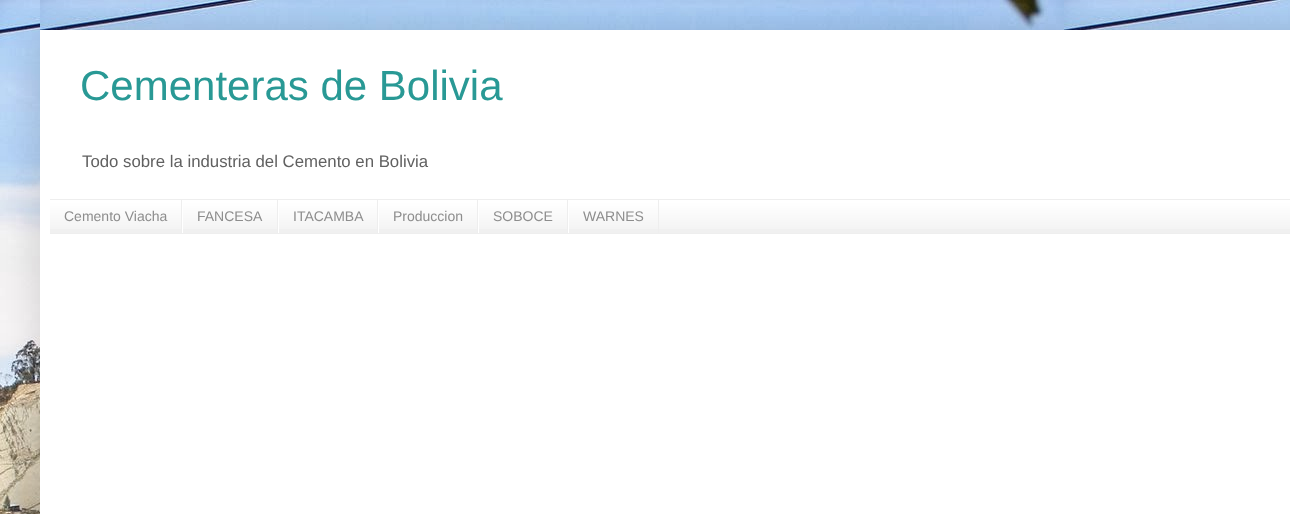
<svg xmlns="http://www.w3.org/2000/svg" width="1290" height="514">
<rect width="100%" height="100%" fill="#fff"/>
<image x="0" y="0" width="40" height="514" href="media/1.png"/>
<image x="40" y="0" width="1250" height="30" href="media/2.png"/>
<rect x="40" y="30" width="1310" height="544" fill="#00000026" filter="blur(20px)"/>
<rect x="40" y="30" width="1250" height="484" fill="#fff"/>
<text x="80" y="100" style="font-family:Liberation Sans;font-size:42px;fill:#299995">Cementeras de Bolivia</text>
<text x="82" y="167" style="font-family:Liberation Sans;font-size:16.8px;fill:#616161">Todo sobre la industria del Cemento en Bolivia</text>
<rect x="50" y="201" width="1240" height="32" fill="#f0f0f0"/>
<image x="50" y="200" width="1240" height="29" href="media/3.png"/>
<rect x="50" y="199" width="1240" height="1" fill="#eee"/>
<rect x="50" y="233" width="1240" height="1" fill="#eee"/>
<rect x="181" y="200" width="1" height="33" fill="#eee"/>
<text x="64" y="221" style="font-family:Liberation Sans;font-size:14px;fill:#8d8d8d">Cemento Viacha</text>
<rect x="277" y="200" width="1" height="33" fill="#eee"/>
<rect x="182" y="200" width="1" height="33" fill="#fff"/>
<text x="197" y="221" style="font-family:Liberation Sans;font-size:14px;fill:#8d8d8d">FANCESA</text>
<rect x="377" y="200" width="1" height="33" fill="#eee"/>
<rect x="278" y="200" width="1" height="33" fill="#fff"/>
<text x="293" y="221" style="font-family:Liberation Sans;font-size:14px;fill:#8d8d8d">ITACAMBA</text>
<rect x="477" y="200" width="1" height="33" fill="#eee"/>
<rect x="378" y="200" width="1" height="33" fill="#fff"/>
<text x="393" y="221" style="font-family:Liberation Sans;font-size:14px;fill:#8d8d8d">Produccion</text>
<rect x="567" y="200" width="1" height="33" fill="#eee"/>
<rect x="478" y="200" width="1" height="33" fill="#fff"/>
<text x="493" y="221" style="font-family:Liberation Sans;font-size:14px;fill:#8d8d8d">SOBOCE</text>
<rect x="658" y="200" width="1" height="33" fill="#eee"/>
<rect x="568" y="200" width="1" height="33" fill="#fff"/>
<text x="583" y="221" style="font-family:Liberation Sans;font-size:14px;fill:#8d8d8d">WARNES</text>
</svg>
